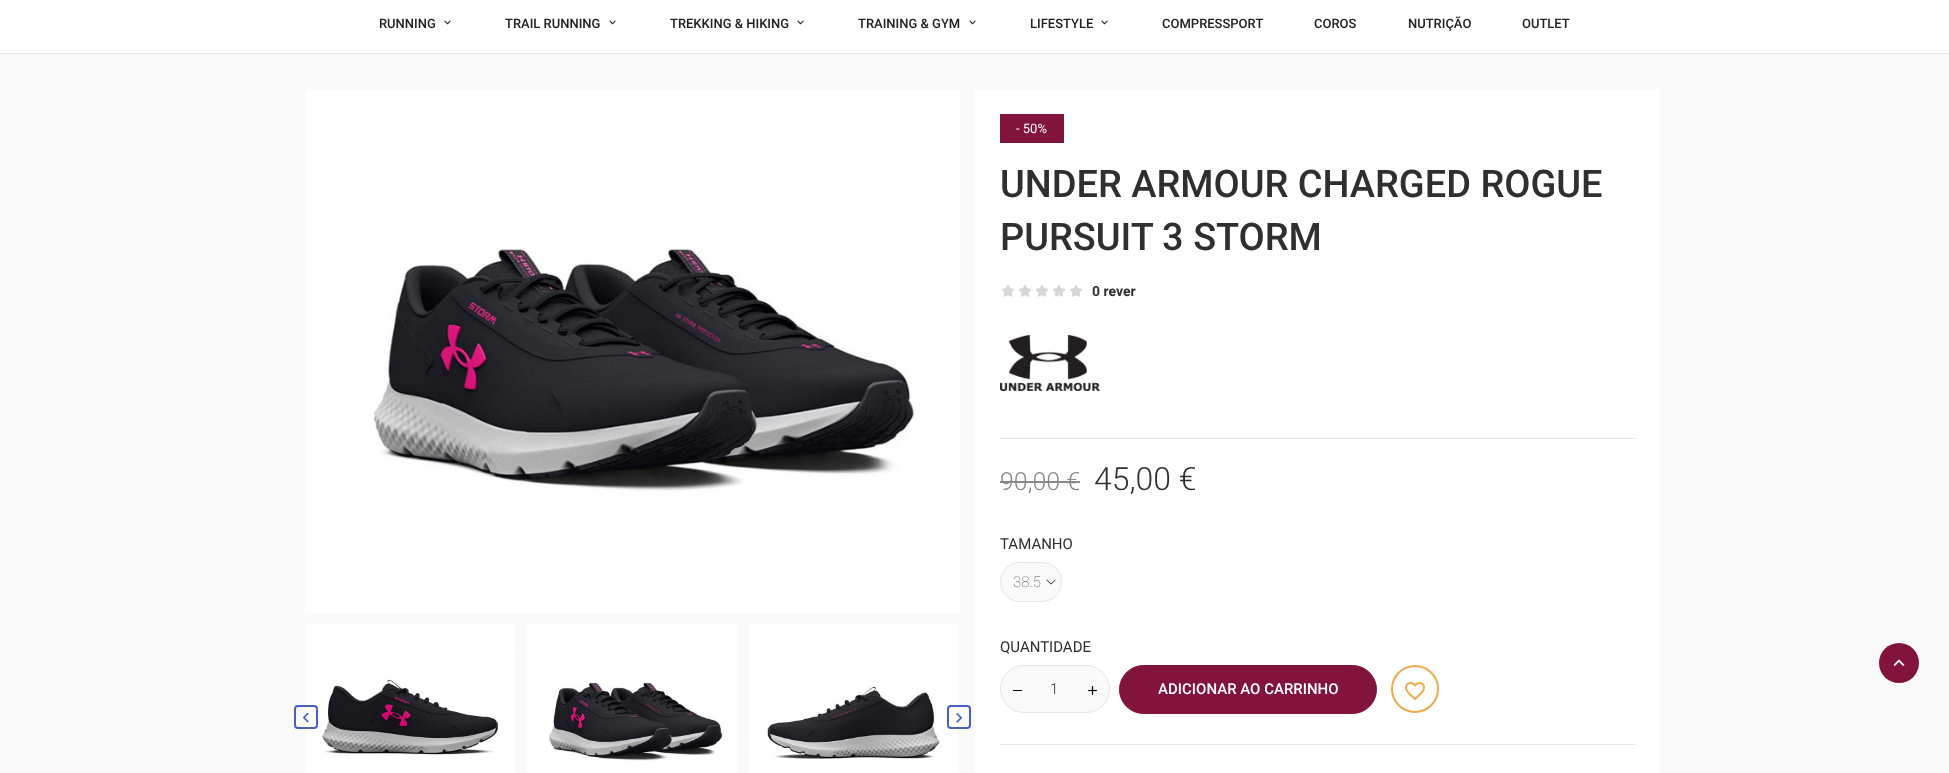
<svg xmlns="http://www.w3.org/2000/svg" width="1949" height="773">
<rect width="100%" height="100%" fill="#fafafa"/>
<rect width="1949" height="53" fill="#fff"/>
<rect y="53" width="1949" height="1" fill="#e5e5e5"/>
<text x="379" y="28" style="font-family:Roboto;font-size:13px;font-weight:500;fill:#222">RUNNING</text>
<image x="444" y="20" width="7" height="5" href="media/1.png"/>
<text x="505" y="28" style="font-family:Roboto;font-size:13px;font-weight:500;fill:#222">TRAIL RUNNING</text>
<image x="609" y="20" width="7" height="5" href="media/1.png"/>
<text x="670" y="28" style="font-family:Roboto;font-size:13px;font-weight:500;fill:#222">TREKKING &amp; HIKING</text>
<image x="797" y="20" width="7" height="5" href="media/1.png"/>
<text x="858" y="28" style="font-family:Roboto;font-size:13px;font-weight:500;fill:#222">TRAINING &amp; GYM</text>
<image x="969" y="20" width="7" height="5" href="media/1.png"/>
<text x="1030" y="28" style="font-family:Roboto;font-size:13px;font-weight:500;fill:#222">LIFESTYLE</text>
<image x="1101" y="20" width="7" height="5" href="media/1.png"/>
<text x="1162" y="28" style="font-family:Roboto;font-size:13px;font-weight:500;fill:#222">COMPRESSPORT</text>
<text x="1314" y="28" style="font-family:Roboto;font-size:13px;font-weight:500;fill:#222">COROS</text>
<text x="1408" y="28" style="font-family:Roboto;font-size:13px;font-weight:500;fill:#222">NUTRIÇÃO</text>
<text x="1522" y="28" style="font-family:Roboto;font-size:13px;font-weight:500;fill:#222">OUTLET</text>
<image x="305" y="89" width="655" height="524" href="media/2.png"/>
<image x="306" y="624" width="209" height="149" href="media/3.png"/>
<image x="527" y="624" width="210" height="149" href="media/4.png"/>
<image x="749" y="624" width="209" height="149" href="media/5.png"/>
<rect x="295" y="706" width="22" height="22" rx="3" fill="none" stroke="#465fcb" stroke-width="2"/>
<image x="302" y="712" width="7" height="11" href="media/6.png"/>
<rect x="948" y="706" width="22" height="22" rx="3" fill="none" stroke="#465fcb" stroke-width="2"/>
<image x="956" y="712" width="7" height="11" href="media/7.png"/>
<rect x="975" y="89" width="685" height="684" fill="#fff"/>
<rect x="1000" y="114" width="64" height="29" fill="#82133d"/>
<text x="1016" y="133" style="font-family:Roboto;font-size:13px;fill:#fff">- 50%</text>
<text x="1000" y="197" style="font-family:Roboto;font-size:38px;font-weight:500;fill:#2f2f2f">UNDER ARMOUR CHARGED ROGUE</text>
<text x="1000" y="250" style="font-family:Roboto;font-size:38px;font-weight:500;fill:#2f2f2f">PURSUIT 3 STORM</text>
<image x="1002" y="285" width="12" height="12" href="media/8.png"/>
<image x="1019" y="285" width="12" height="12" href="media/8.png"/>
<image x="1036" y="285" width="12" height="12" href="media/8.png"/>
<image x="1053" y="285" width="12" height="12" href="media/8.png"/>
<image x="1070" y="285" width="12" height="12" href="media/8.png"/>
<text x="1092" y="296" style="font-family:Roboto;font-size:14px;font-weight:bold;fill:#2f2f2f">0 rever</text>
<image x="1000" y="335" width="100" height="56" href="media/9.png"/>
<rect x="1000" y="438" width="635" height="1" fill="#e5e5e5"/>
<text x="1000" y="490" style="font-family:Roboto;font-size:25px;font-weight:300;fill:#898989">90,00 €</text>
<rect x="1000" y="481" width="80" height="2" fill="#898989"/>
<text x="1094" y="490" style="font-family:Roboto;font-size:32px;font-weight:300;fill:#2f2f2f">45,00 €</text>
<text x="1000" y="549" style="font-family:Roboto;font-size:15px;fill:#2f2f2f">TAMANHO</text>
<rect x="1000" y="562" width="62" height="40" rx="20" fill="#fafafa"/>
<image x="1046" y="579" width="10" height="6" href="media/10.png"/>
<rect x="1000.5" y="562.5" width="61" height="39" rx="19.5" fill="none" stroke="#e5e5e5"/>
<text x="1013" y="587" style="font-family:Roboto;font-size:15px;font-weight:100;fill:#464a4c">38.5</text>
<text x="1000" y="652" style="font-family:Roboto;font-size:15px;fill:#2f2f2f">QUANTIDADE</text>
<rect x="1000.5" y="665.5" width="109" height="47" rx="23.5" fill="#fafafa" stroke="#e5e5e5"/>
<text x="1050" y="694" style="font-family:Roboto;font-size:15px;font-weight:300;fill:#2f2f2f">1</text>
<rect x="1013" y="690" width="9" height="1" fill="#000"/>
<image x="1088" y="686" width="9" height="9" href="media/11.png"/>
<rect x="1119.5" y="665.5" width="257" height="48" rx="24" fill="#82133d" stroke="#82133d"/>
<text x="1158" y="694" style="font-family:Roboto;font-size:15px;font-weight:500;fill:#fff">ADICIONAR AO CARRINHO</text>
<circle cx="1415" cy="689" r="23" fill="none" stroke="#f0aa4e" stroke-width="2"/>
<image x="1405" y="682" width="20" height="19" href="media/12.png"/>
<rect x="1000" y="744" width="635" height="1" fill="#e5e5e5"/>
<circle cx="1899" cy="663" r="20" fill="#82133d"/>
<image x="1893" y="659" width="12" height="7" href="media/13.png"/>
</svg>
